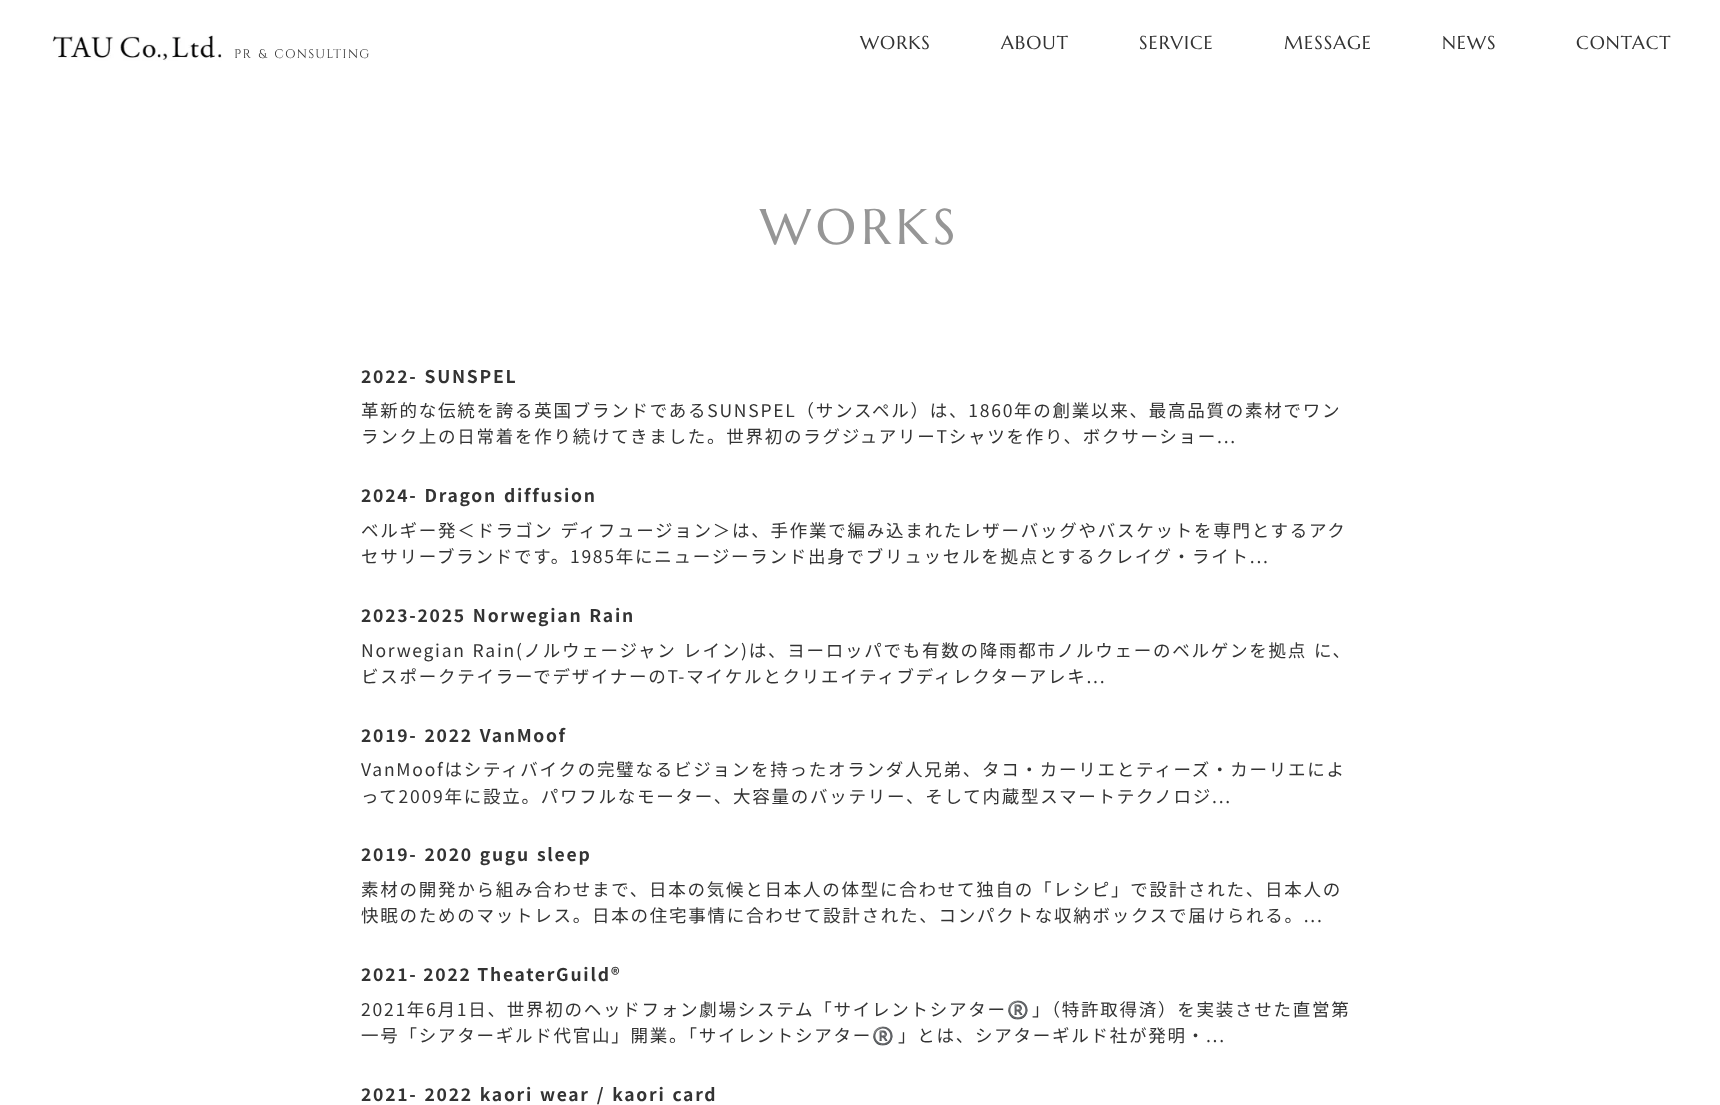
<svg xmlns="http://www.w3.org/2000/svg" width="1720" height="1105">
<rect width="100%" height="100%" fill="#fff"/>
<text x="860" y="49" style="font-family:Marcellus;font-size:18.75px;letter-spacing:1px;fill:#333">WORKS</text>
<text x="1001" y="49" style="font-family:Marcellus;font-size:18.75px;letter-spacing:1px;fill:#333">ABOUT</text>
<text x="1139" y="49" style="font-family:Marcellus;font-size:18.75px;letter-spacing:1px;fill:#333">SERVICE</text>
<text x="1284" y="49" style="font-family:Marcellus;font-size:18.75px;letter-spacing:1px;fill:#333">MESSAGE</text>
<text x="1442" y="49" style="font-family:Marcellus;font-size:18.75px;letter-spacing:1px;fill:#333">NEWS</text>
<text x="1576" y="49" style="font-family:Marcellus;font-size:18.75px;letter-spacing:1px;fill:#333">CONTACT</text>
<image x="50" y="35" width="172" height="26" href="media/1.png"/>
<text x="234" y="58" word-spacing="2" style="font-family:Cinzel;font-size:12.5px;letter-spacing:1.25px;fill:#333">PR &amp; CONSULTING</text>
<text x="760" y="244" style="font-family:Marcellus;font-size:50px;letter-spacing:5px;fill:#969696">WORKS</text>
<text x="361" y="383" word-spacing="1.25" style="font-family:Noto Sans JP;font-size:17.5px;font-weight:bold;letter-spacing:1.75px;fill:#333">2022- SUNSPEL</text>
<text x="361" y="417" style="font-family:Noto Sans JP;font-size:17.5px;letter-spacing:1.75px;fill:#333">革新的な伝統を誇る英国ブランドであるSUNSPEL（サンスペル）は、1860年の創業以来、最高品質の素材でワン</text>
<text x="361" y="443" style="font-family:Noto Sans JP;font-size:17.5px;letter-spacing:1.75px;fill:#333">ランク上の日常着を作り続けてきました。世界初のラグジュアリーTシャツを作り、ボクサーショー...</text>
<text x="361" y="502" word-spacing="1.25" style="font-family:Noto Sans JP;font-size:17.5px;font-weight:bold;letter-spacing:1.75px;fill:#333">2024- Dragon diffusion</text>
<text x="361" y="537" word-spacing="1.25" style="font-family:Noto Sans JP;font-size:17.5px;letter-spacing:1.75px;fill:#333">ベルギー発＜ドラゴン ディフュージョン＞は、手作業で編み込まれたレザーバッグやバスケットを専門とするアク</text>
<text x="361" y="563" style="font-family:Noto Sans JP;font-size:17.5px;letter-spacing:1.75px;fill:#333">セサリーブランドです。1985年にニュージーランド出身でブリュッセルを拠点とするクレイグ・ライト...</text>
<text x="361" y="622" word-spacing="1.25" style="font-family:Noto Sans JP;font-size:17.5px;font-weight:bold;letter-spacing:1.75px;fill:#333">2023-2025 Norwegian Rain</text>
<text x="361" y="657" word-spacing="1.25" style="font-family:Noto Sans JP;font-size:17.5px;letter-spacing:1.75px;fill:#333">Norwegian Rain(ノルウェージャン レイン)は、ヨーロッパでも有数の降雨都市ノルウェーのベルゲンを拠点 に、</text>
<text x="361" y="683" style="font-family:Noto Sans JP;font-size:17.5px;letter-spacing:1.75px;fill:#333">ビスポークテイラーでデザイナーのT-マイケルとクリエイティブディレクターアレキ...</text>
<text x="361" y="742" word-spacing="1.25" style="font-family:Noto Sans JP;font-size:17.5px;font-weight:bold;letter-spacing:1.75px;fill:#333">2019- 2022 VanMoof</text>
<text x="361" y="776" style="font-family:Noto Sans JP;font-size:17.5px;letter-spacing:1.75px;fill:#333">VanMoofはシティバイクの完璧なるビジョンを持ったオランダ人兄弟、タコ・カーリエとティーズ・カーリエによ</text>
<text x="361" y="803" style="font-family:Noto Sans JP;font-size:17.5px;letter-spacing:1.75px;fill:#333">って2009年に設立。パワフルなモーター、大容量のバッテリー、そして内蔵型スマートテクノロジ...</text>
<text x="361" y="861" word-spacing="1.25" style="font-family:Noto Sans JP;font-size:17.5px;font-weight:bold;letter-spacing:1.75px;fill:#333">2019- 2020 gugu sleep</text>
<text x="361" y="896" style="font-family:Noto Sans JP;font-size:17.5px;letter-spacing:1.75px;fill:#333">素材の開発から組み合わせまで、日本の気候と日本人の体型に合わせて独自の「レシピ」で設計された、日本人の</text>
<text x="361" y="922" style="font-family:Noto Sans JP;font-size:17.5px;letter-spacing:1.75px;fill:#333">快眠のためのマットレス。日本の住宅事情に合わせて設計された、コンパクトな収納ボックスで届けられる。...</text>
<text x="361" y="981" style="font-family:Noto Sans JP;font-size:17.5px;font-weight:bold;letter-spacing:1.75px;fill:#333">2021- 2022 TheaterGuild®︎</text>
<text x="361" y="1016" style="font-family:Noto Sans JP;font-size:17.5px;letter-spacing:1.75px;fill:#333">2021年6月1日、世界初のヘッドフォン劇場システム「サイレントシアター</text>
<text x="1007" y="1016" style="font-family:Noto Color Emoji;font-size:17.5px;letter-spacing:1.75px;fill:#333">®️</text>
<text x="1032" y="1016" style="font-family:Noto Sans JP;font-size:17.5px;letter-spacing:1.75px;fill:#333">」（特許取得済）を実装させた直営第</text>
<text x="361" y="1042" style="font-family:Noto Sans JP;font-size:17.5px;letter-spacing:1.75px;fill:#333">一号「シアターギルド代官山」開業。「サイレントシアター</text>
<text x="872" y="1042" style="font-family:Noto Color Emoji;font-size:17.5px;letter-spacing:1.75px;fill:#333">®️</text>
<text x="898" y="1042" style="font-family:Noto Sans JP;font-size:17.5px;letter-spacing:1.75px;fill:#333">」とは、シアターギルド社が発明・...</text>
<text x="361" y="1101" word-spacing="1.25" style="font-family:Noto Sans JP;font-size:17.5px;font-weight:bold;letter-spacing:1.75px;fill:#333">2021- 2022 kaori wear / kaori card</text>
</svg>
